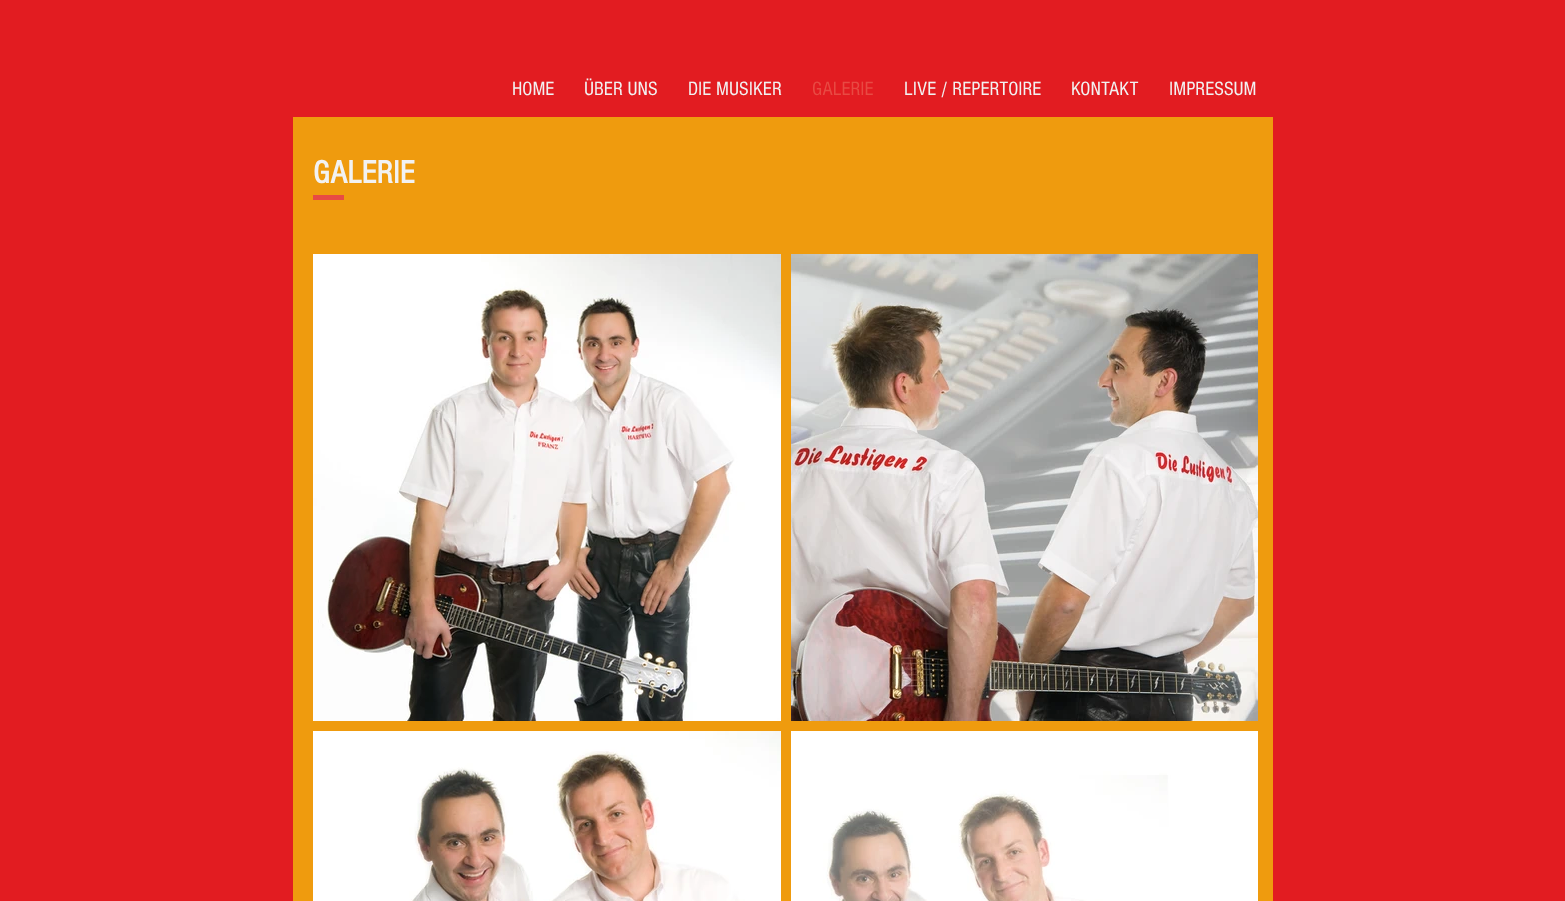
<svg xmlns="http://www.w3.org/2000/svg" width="1565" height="901">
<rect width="100%" height="100%" fill="#e21c21"/>
<text x="512" y="95" style="font-family:'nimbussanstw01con';font-size:20px;fill:#f2f2f2">HOME</text>
<text x="584" y="95" style="font-family:'nimbussanstw01con';font-size:20px;fill:#f2f2f2">ÜBER UNS</text>
<text x="688" y="95" style="font-family:'nimbussanstw01con';font-size:20px;fill:#f2f2f2">DIE MUSIKER</text>
<text x="812" y="95" style="font-family:'nimbussanstw01con';font-size:20px;fill:#e84a43">GALERIE</text>
<text x="904" y="95" style="font-family:'nimbussanstw01con';font-size:20px;fill:#f2f2f2">LIVE / REPERTOIRE</text>
<text x="1071" y="95" style="font-family:'nimbussanstw01con';font-size:20px;fill:#f2f2f2">KONTAKT</text>
<text x="1169" y="95" style="font-family:'nimbussanstw01con';font-size:20px;fill:#f2f2f2">IMPRESSUM</text>
<rect x="293" y="117" width="980" height="784" fill="#ef9b0e"/>
<text x="313" y="183" style="font-family:'nimbussanstw01con';font-size:33px;font-weight:bold;fill:#f2f2f2">GALERIE</text>
<rect x="313" y="195" width="31" height="5" fill="#e84a43"/>
<image x="313" y="254" width="468" height="467" href="media/1.png"/>
<image x="791" y="254" width="467" height="467" href="media/2.png"/>
<image x="313" y="731" width="468" height="170" href="media/3.png"/>
<image x="791" y="731" width="467" height="170" href="media/4.png"/>
</svg>
